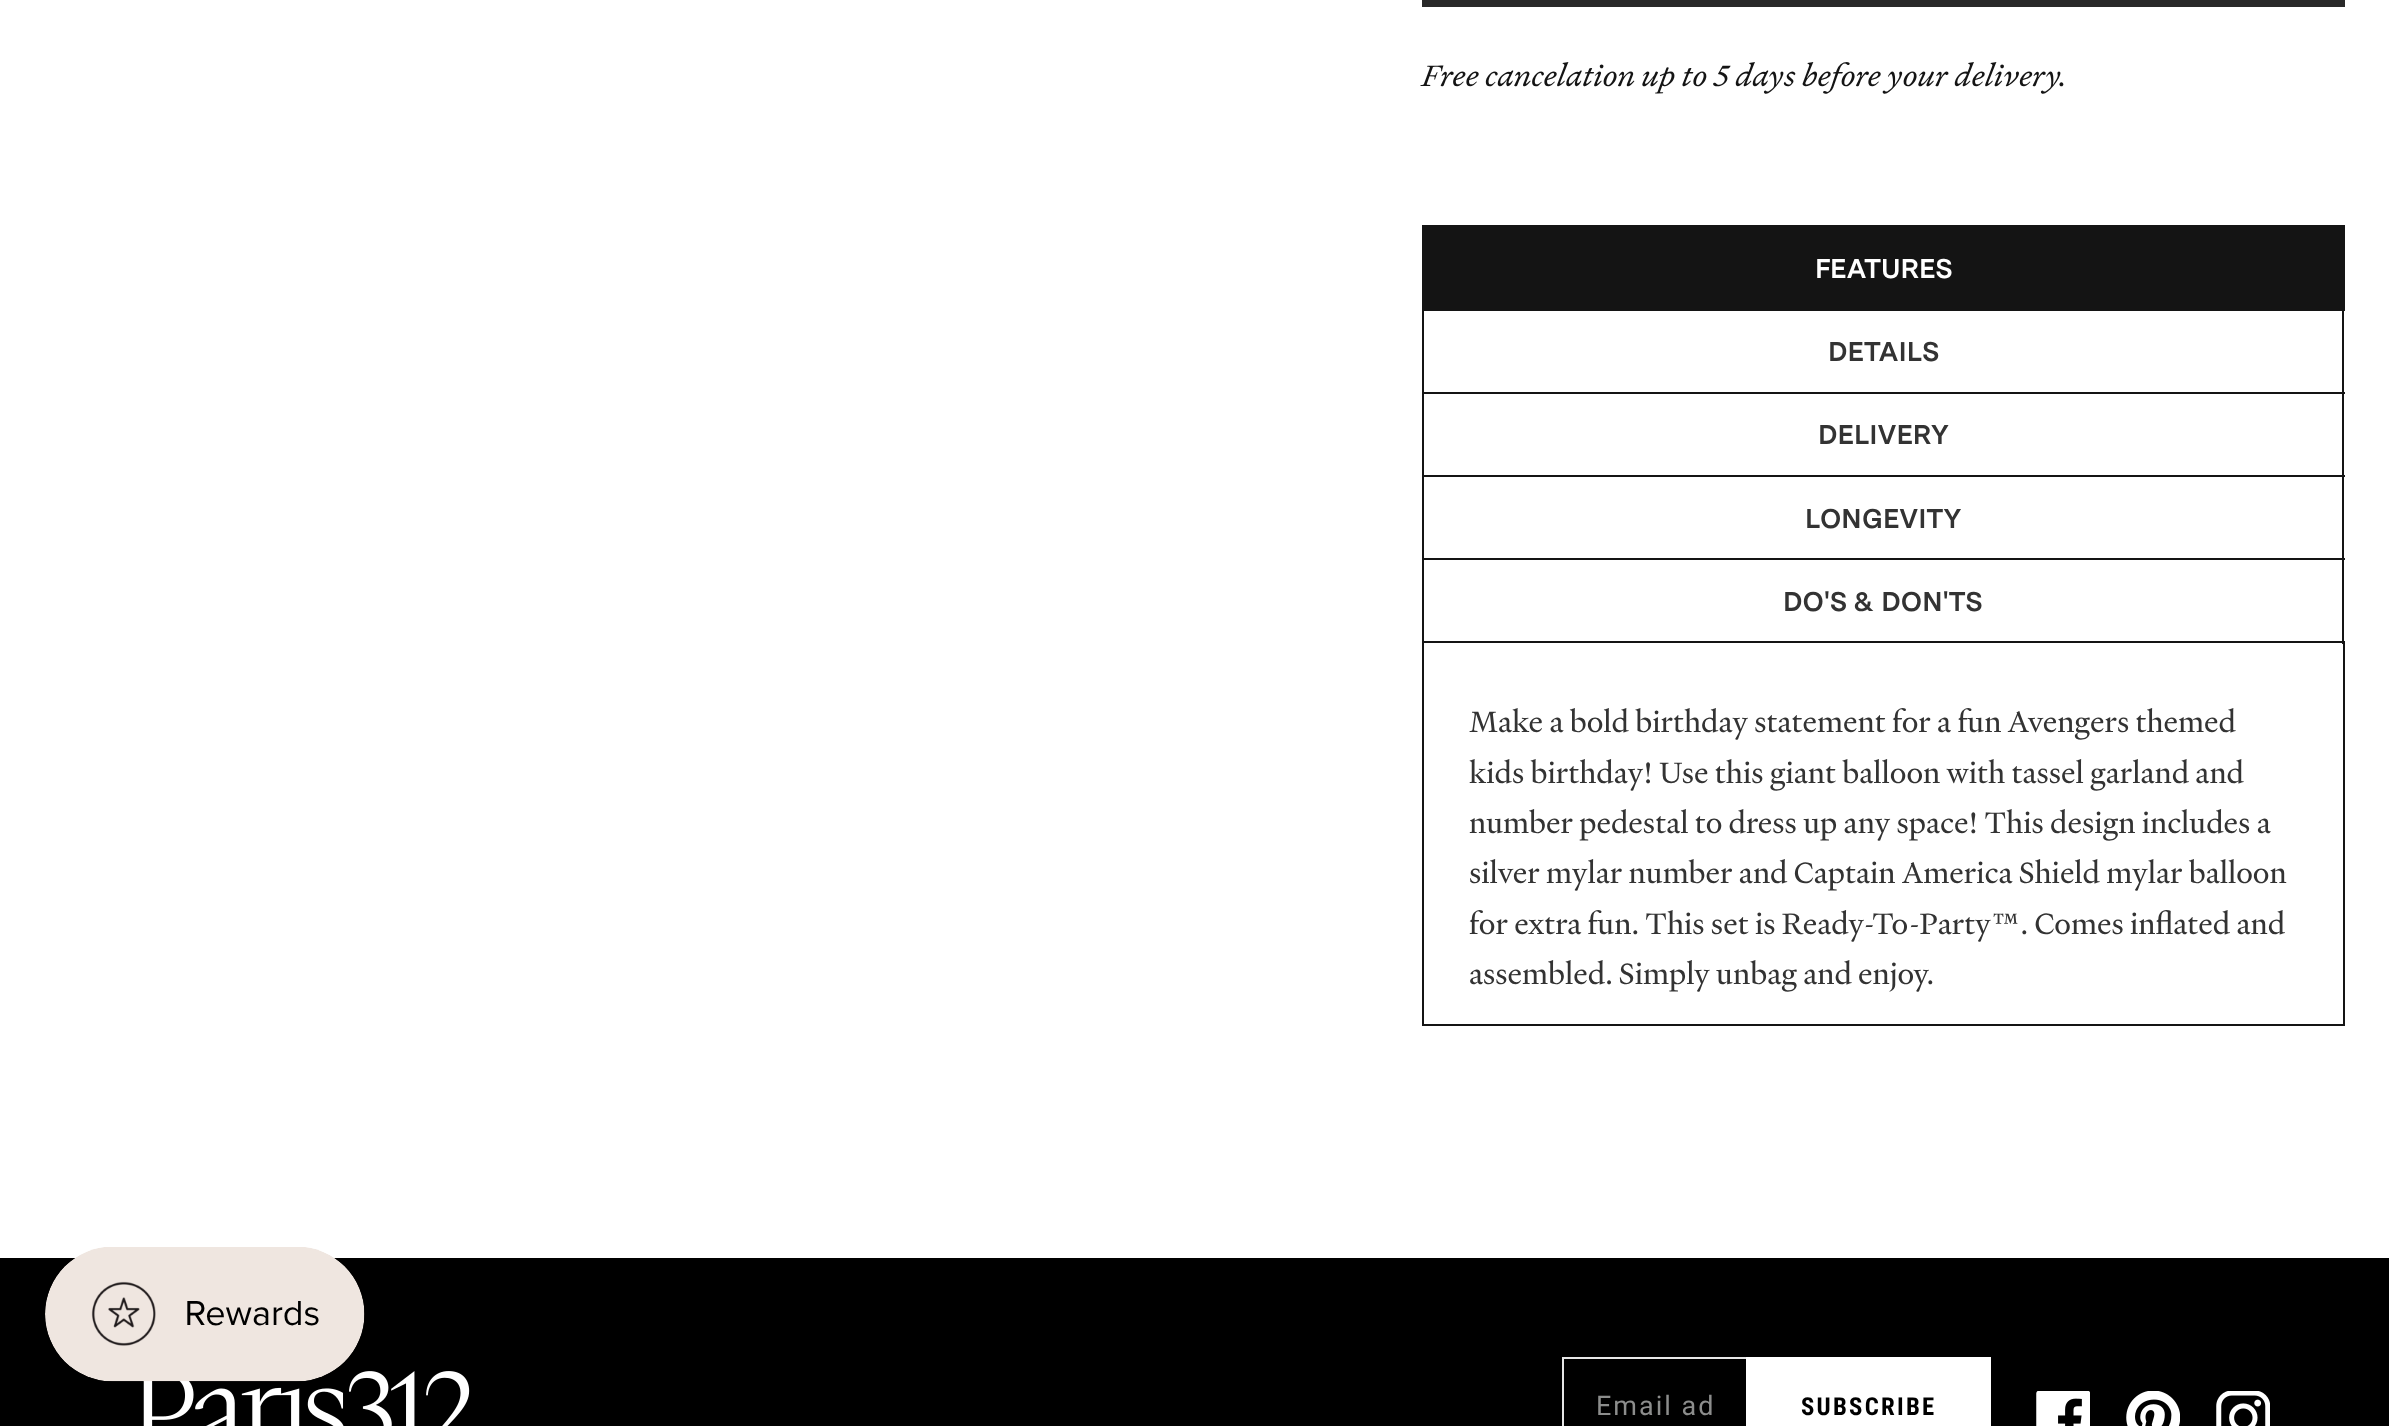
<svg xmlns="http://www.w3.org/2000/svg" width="2389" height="1426">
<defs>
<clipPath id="clip1"><rect x="1598" y="1391" width="114" height="31"/></clipPath>
</defs>
<rect width="100%" height="100%" fill="#fff"/>
<rect x="1422" width="923" height="7" fill="#292929"/>
<text x="1422" y="86" style="font-family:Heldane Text;font-size:31.5px;fill:#141414">Free cancelation up to 5 days before your delivery.</text>
<rect x="1422" y="225" width="923" height="86" fill="#141414"/>
<text x="1815" y="278" style="font-family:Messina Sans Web;font-size:27px;font-weight:bold;fill:#fff">FEATURES</text>
<rect x="1423" y="642" width="921" height="383" fill="none" stroke="#141414" stroke-width="2"/>
<rect x="2342" y="311" width="2" height="333" fill="#141414"/>
<rect x="1422" y="392" width="923" height="2" fill="#141414"/>
<rect x="1422" y="311" width="2" height="83" fill="#141414"/>
<text x="1828" y="361" style="font-family:Messina Sans Web;font-size:27px;font-weight:bold;fill:#333">DETAILS</text>
<rect x="1422" y="475" width="923" height="2" fill="#141414"/>
<rect x="1422" y="394" width="2" height="83" fill="#141414"/>
<text x="1818" y="444" style="font-family:Messina Sans Web;font-size:27px;font-weight:bold;fill:#333">DELIVERY</text>
<rect x="1422" y="558" width="923" height="2" fill="#141414"/>
<rect x="1422" y="477" width="2" height="167" fill="#141414"/>
<text x="1805" y="528" style="font-family:Messina Sans Web;font-size:27px;font-weight:bold;fill:#333">LONGEVITY</text>
<text x="1783" y="611" style="font-family:Messina Sans Web;font-size:27px;font-weight:bold;fill:#333">DO'S &amp; DON'TS</text>
<text x="1469" y="732" style="font-family:'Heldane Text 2';font-size:31.5px;fill:#333">Make a bold birthday statement for a fun Avengers themed</text>
<text x="1469" y="783" style="font-family:'Heldane Text 2';font-size:31.5px;fill:#333">kids birthday! Use this giant balloon with tassel garland and</text>
<text x="1469" y="833" style="font-family:'Heldane Text 2';font-size:31.5px;fill:#333">number pedestal to dress up any space! This design includes a</text>
<text x="1469" y="883" style="font-family:'Heldane Text 2';font-size:31.5px;fill:#333">silver mylar number and Captain America Shield mylar balloon</text>
<text x="1469" y="934" style="font-family:'Heldane Text 2';font-size:31.5px;fill:#333">for extra fun. This set is Ready-To-Party™. Comes inflated and</text>
<text x="1469" y="984" style="font-family:'Heldane Text 2';font-size:31.5px;fill:#333">assembled. Simply unbag and enjoy.</text>
<rect y="1258" width="2389" height="168" fill="#000"/>
<image x="143" y="1371" width="327" height="55" href="media/2.png"/>
<image x="45" y="1247" width="320" height="135" href="media/1.png"/>
<rect x="1562" y="1357" width="184" height="2" fill="#e6e6e6"/>
<rect x="1562" y="1357" width="2" height="69" fill="#e6e6e6"/>
<g clip-path="url(#clip1)">
<text x="1596" y="1415" style="font-family:Roboto;font-size:27px;letter-spacing:2px;fill:#8c8d8c">Email ad</text>
</g>
<rect x="1746" y="1357" width="245" height="69" fill="#fff"/>
<text x="1801" y="1415" style="font-family:Roboto Condensed;font-size:24.75px;font-weight:bold;letter-spacing:2.25px;fill:#000">SUBSCRIBE</text>
<image x="2036" y="1391" width="54" height="35" href="media/3.png"/>
<image x="2126" y="1391" width="54" height="35" href="media/4.png"/>
<image x="2216" y="1391" width="54" height="35" href="media/5.png"/>
</svg>
